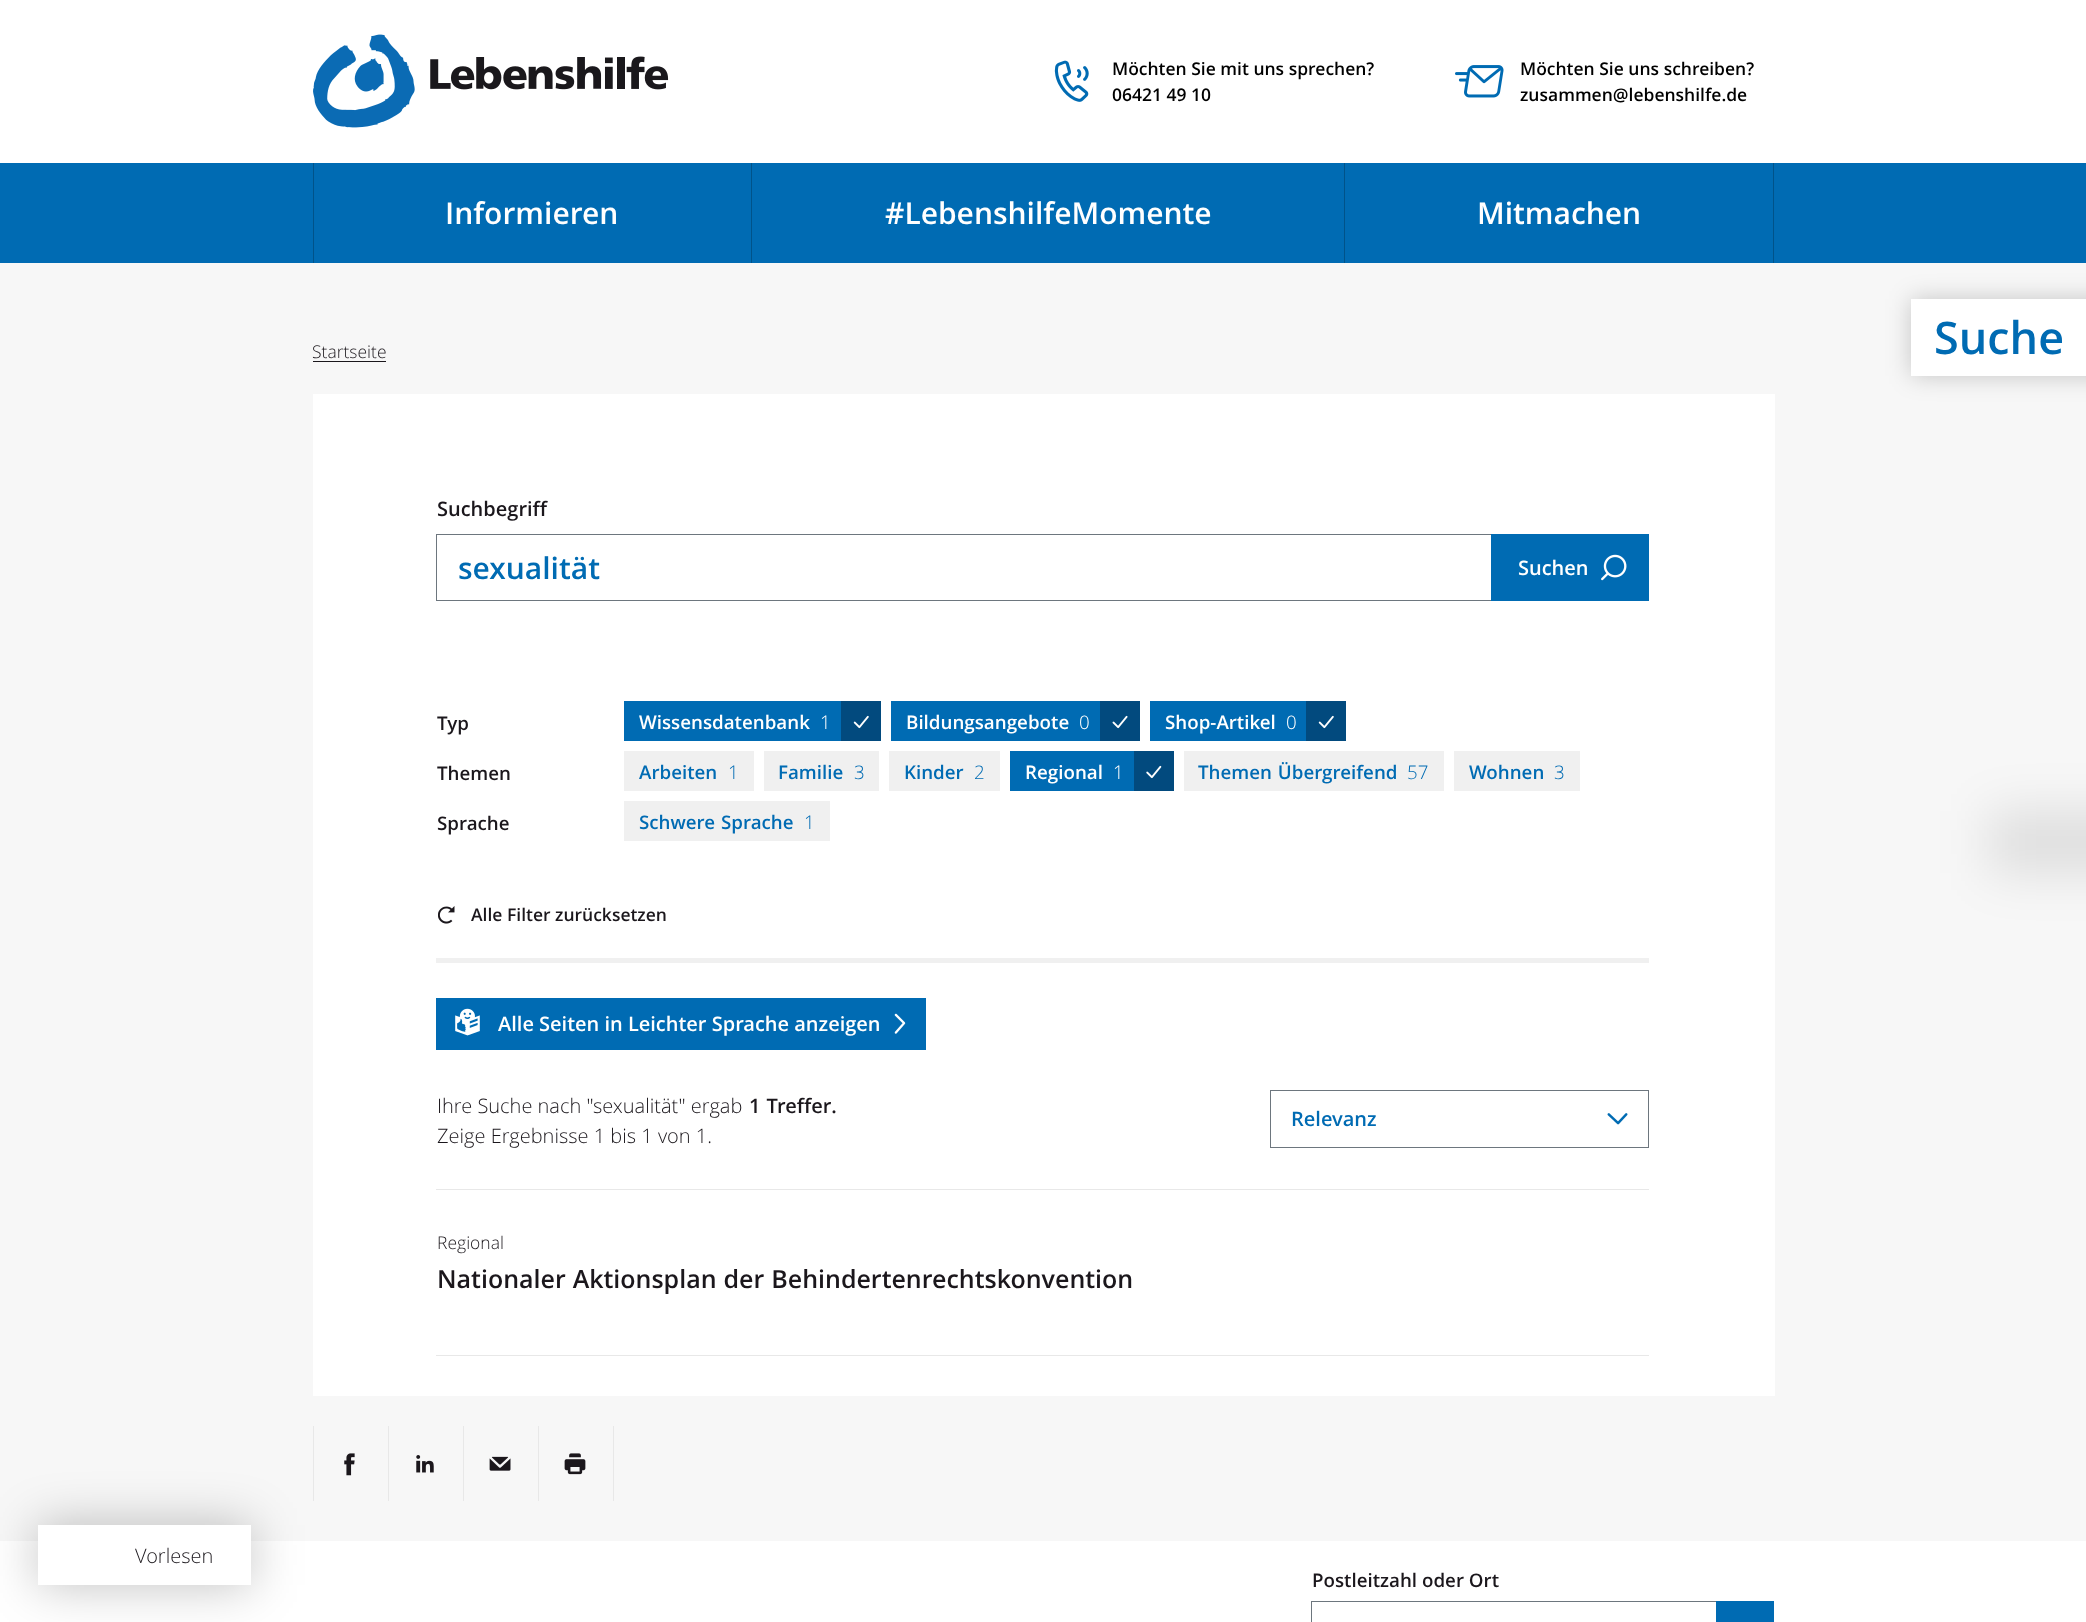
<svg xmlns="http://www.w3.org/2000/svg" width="2086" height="1622">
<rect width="100%" height="100%" fill="#f7f7f7"/>
<rect width="2086" height="163" fill="#fff"/>
<image x="313" y="34" width="356" height="94" href="media/1.png"/>
<image x="1054" y="60" width="35" height="42" href="media/2.png"/>
<text x="1112" y="75" style="font-family:Open Sans;font-size:17.5px;font-weight:600;fill:#000">Möchten Sie mit uns sprechen?</text>
<text x="1112" y="101" style="font-family:Open Sans;font-size:17.5px;font-weight:600;fill:#000">06421 49 10</text>
<image x="1455" y="65" width="49" height="33" href="media/3.png"/>
<text x="1520" y="75" style="font-family:Open Sans;font-size:17.5px;font-weight:600;fill:#000">Möchten Sie uns schreiben?</text>
<text x="1520" y="101" style="font-family:Open Sans;font-size:17.5px;font-weight:600;fill:#000">zusammen@lebenshilfe.de</text>
<rect x="1911" y="299" width="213" height="77" fill="#00000033" filter="blur(12.5px)"/>
<rect y="163" width="2086" height="100" fill="#006bb3"/>
<rect x="313" y="163" width="1" height="100" fill="#00538a"/>
<text x="445" y="224" style="font-family:Open Sans;font-size:30px;font-weight:600;fill:#fff">Informieren</text>
<rect x="751" y="163" width="1" height="100" fill="#00538a"/>
<text x="885" y="224" style="font-family:Open Sans;font-size:30px;font-weight:600;fill:#fff">#LebenshilfeMomente</text>
<rect x="1773" y="163" width="1" height="100" fill="#00538a"/>
<rect x="1344" y="163" width="1" height="100" fill="#00538a"/>
<text x="1477" y="224" style="font-family:Open Sans;font-size:30px;font-weight:600;fill:#fff">Mitmachen</text>
<text x="312" y="358" style="font-family:Open Sans;font-size:17.5px;font-weight:300;fill:#1b171c">Startseite</text>
<rect x="313" y="361" width="73" height="1" fill="#1b171c"/>
<rect x="1911" y="299" width="175" height="77" fill="#fff"/>
<text x="1934" y="354" style="font-family:Open Sans;font-size:45px;font-weight:600;fill:#006bb3">Suche</text>
<rect x="313" y="394" width="1462" height="1002" fill="#fff"/>
<text x="437" y="516" style="font-family:Open Sans;font-size:20px;font-weight:600;fill:#1b171c">Suchbegriff</text>
<rect x="436.5" y="534.5" width="1056" height="66" fill="none" stroke="#6d767e"/>
<text x="458" y="579" style="font-family:Open Sans;font-size:30px;font-weight:600;fill:#006bb3">sexualität</text>
<rect x="1491" y="534" width="158" height="67" fill="#006bb3"/>
<text x="1518" y="575" style="font-family:Open Sans;font-size:20px;font-weight:600;fill:#fff">Suchen</text>
<image x="1601" y="554" width="26" height="27" href="media/4.png"/>
<text x="437" y="730" style="font-family:Open Sans;font-size:18.75px;font-weight:600;fill:#1b171c">Typ</text>
<rect x="624" y="701" width="217" height="40" fill="#006bb3"/>
<text x="639" y="729" style="font-family:Open Sans;font-size:18.75px;font-weight:600;fill:#fff">Wissensdatenbank</text>
<text x="820" y="729" style="font-family:Open Sans;font-size:18.75px;font-weight:300;fill:#fff">1</text>
<rect x="841" y="701" width="40" height="40" fill="#024a7e"/>
<image x="853" y="715" width="16" height="14" href="media/5.png"/>
<rect x="891" y="701" width="209" height="40" fill="#006bb3"/>
<text x="906" y="729" style="font-family:Open Sans;font-size:18.75px;font-weight:600;fill:#fff">Bildungsangebote</text>
<text x="1079" y="729" style="font-family:Open Sans;font-size:18.75px;font-weight:300;fill:#fff">0</text>
<rect x="1100" y="701" width="40" height="40" fill="#024a7e"/>
<image x="1112" y="715" width="16" height="14" href="media/6.png"/>
<rect x="1150" y="701" width="156" height="40" fill="#006bb3"/>
<text x="1165" y="729" style="font-family:Open Sans;font-size:18.75px;font-weight:600;fill:#fff">Shop-Artikel</text>
<text x="1286" y="729" style="font-family:Open Sans;font-size:18.75px;font-weight:300;fill:#fff">0</text>
<rect x="1306" y="701" width="40" height="40" fill="#024a7e"/>
<image x="1318" y="715" width="16" height="14" href="media/5.png"/>
<text x="437" y="780" style="font-family:Open Sans;font-size:18.75px;font-weight:600;fill:#1b171c">Themen</text>
<rect x="624" y="751" width="130" height="40" fill="#f0f0f0"/>
<text x="639" y="779" style="font-family:Open Sans;font-size:18.75px;font-weight:600;fill:#006bb3">Arbeiten</text>
<text x="728" y="779" style="font-family:Open Sans;font-size:18.75px;font-weight:300;fill:#006bb3">1</text>
<rect x="764" y="751" width="115" height="40" fill="#f0f0f0"/>
<text x="778" y="779" style="font-family:Open Sans;font-size:18.75px;font-weight:600;fill:#006bb3">Familie</text>
<text x="854" y="779" style="font-family:Open Sans;font-size:18.75px;font-weight:300;fill:#006bb3">3</text>
<rect x="889" y="751" width="111" height="40" fill="#f0f0f0"/>
<text x="904" y="779" style="font-family:Open Sans;font-size:18.75px;font-weight:600;fill:#006bb3">Kinder</text>
<text x="974" y="779" style="font-family:Open Sans;font-size:18.75px;font-weight:300;fill:#006bb3">2</text>
<rect x="1010" y="751" width="124" height="40" fill="#006bb3"/>
<text x="1025" y="779" style="font-family:Open Sans;font-size:18.75px;font-weight:600;fill:#fff">Regional</text>
<text x="1113" y="779" style="font-family:Open Sans;font-size:18.75px;font-weight:300;fill:#fff">1</text>
<rect x="1134" y="751" width="40" height="40" fill="#024a7e"/>
<image x="1146" y="765" width="16" height="14" href="media/7.png"/>
<rect x="1184" y="751" width="260" height="40" fill="#f0f0f0"/>
<text x="1198" y="779" word-spacing="1" style="font-family:Open Sans;font-size:18.75px;font-weight:600;fill:#006bb3">Themen Übergreifend</text>
<text x="1407" y="779" style="font-family:Open Sans;font-size:18.75px;font-weight:300;fill:#006bb3">57</text>
<rect x="1454" y="751" width="126" height="40" fill="#f0f0f0"/>
<text x="1469" y="779" style="font-family:Open Sans;font-size:18.75px;font-weight:600;fill:#006bb3">Wohnen</text>
<text x="1554" y="779" style="font-family:Open Sans;font-size:18.75px;font-weight:300;fill:#006bb3">3</text>
<text x="437" y="830" style="font-family:Open Sans;font-size:18.75px;font-weight:600;fill:#1b171c">Sprache</text>
<rect x="624" y="801" width="206" height="40" fill="#f0f0f0"/>
<text x="639" y="829" word-spacing="1" style="font-family:Open Sans;font-size:18.75px;font-weight:600;fill:#006bb3">Schwere Sprache</text>
<text x="804" y="829" style="font-family:Open Sans;font-size:18.75px;font-weight:300;fill:#006bb3">1</text>
<image x="438" y="906" width="17" height="18" href="media/8.png"/>
<text x="471" y="921" style="font-family:Open Sans;font-size:17.5px;font-weight:600;fill:#1b171c">Alle Filter zurücksetzen</text>
<rect x="436" y="958" width="1213" height="5" fill="#f0f0f0"/>
<rect x="436" y="998" width="490" height="52" fill="#006bb3"/>
<image x="455" y="1008" width="25" height="28" href="media/9.png"/>
<text x="498" y="1031" style="font-family:Open Sans;font-size:20px;font-weight:600;fill:#fff">Alle Seiten in Leichter Sprache anzeigen</text>
<image x="894" y="1013" width="12" height="21" href="media/10.png"/>
<text x="437" y="1113" style="font-family:Open Sans;font-size:20px;font-weight:300;fill:#1b171c">Ihre Suche nach "sexualität" ergab</text>
<text x="749" y="1113" word-spacing="1" style="font-family:Open Sans;font-size:20px;font-weight:600;fill:#1b171c">1 Treffer.</text>
<text x="437" y="1143" style="font-family:Open Sans;font-size:20px;font-weight:300;fill:#1b171c">Zeige Ergebnisse 1 bis 1 von 1.</text>
<rect x="1270.5" y="1090.5" width="378" height="57" fill="none" stroke="#6d767e"/>
<text x="1291" y="1126" style="font-family:Open Sans;font-size:20px;font-weight:600;fill:#006bb3">Relevanz</text>
<image x="1607" y="1113" width="21" height="12" href="media/11.png"/>
<rect x="436" y="1189" width="1213" height="1" fill="#e8e8e8"/>
<rect x="436" y="1355" width="1213" height="1" fill="#e8e8e8"/>
<text x="437" y="1249" style="font-family:Open Sans;font-size:17.5px;font-weight:300;fill:#1b171c">Regional</text>
<text x="437" y="1288" word-spacing="0.5" style="font-family:Open Sans;font-size:25px;font-weight:600;fill:#1b171c">Nationaler Aktionsplan der Behindertenrechtskonvention</text>
<rect x="1988" y="811" width="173" height="62" fill="#0000001a" filter="blur(25px)"/>
<rect x="313" y="1426" width="1" height="75" fill="#e8e8e8"/>
<rect x="388" y="1426" width="1" height="75" fill="#e8e8e8"/>
<image x="344" y="1453" width="11" height="23" href="media/12.png"/>
<rect x="463" y="1426" width="1" height="75" fill="#e8e8e8"/>
<image x="416" y="1455" width="18" height="18" href="media/13.png"/>
<rect x="538" y="1426" width="1" height="75" fill="#e8e8e8"/>
<image x="489" y="1456" width="22" height="15" href="media/14.png"/>
<rect x="613" y="1426" width="1" height="75" fill="#e8e8e8"/>
<image x="564" y="1453" width="22" height="22" href="media/15.png"/>
<rect y="1541" width="2086" height="81" fill="#fff"/>
<rect x="38" y="1525" width="213" height="60" fill="#00000040" filter="blur(25px)"/>
<rect x="38" y="1525" width="213" height="60" fill="#fff"/>
<text x="135" y="1563" style="font-family:Open Sans;font-size:20px;font-weight:300;fill:#1b171c">Vorlesen</text>
<text x="1312" y="1587" style="font-family:Open Sans;font-size:18.75px;font-weight:600;fill:#1b171c">Postleitzahl oder Ort</text>
<rect x="1311.5" y="1601.5" width="462" height="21" fill="none" stroke="#6d767e"/>
<rect x="1716" y="1601" width="58" height="21" fill="#006bb3"/>
</svg>
